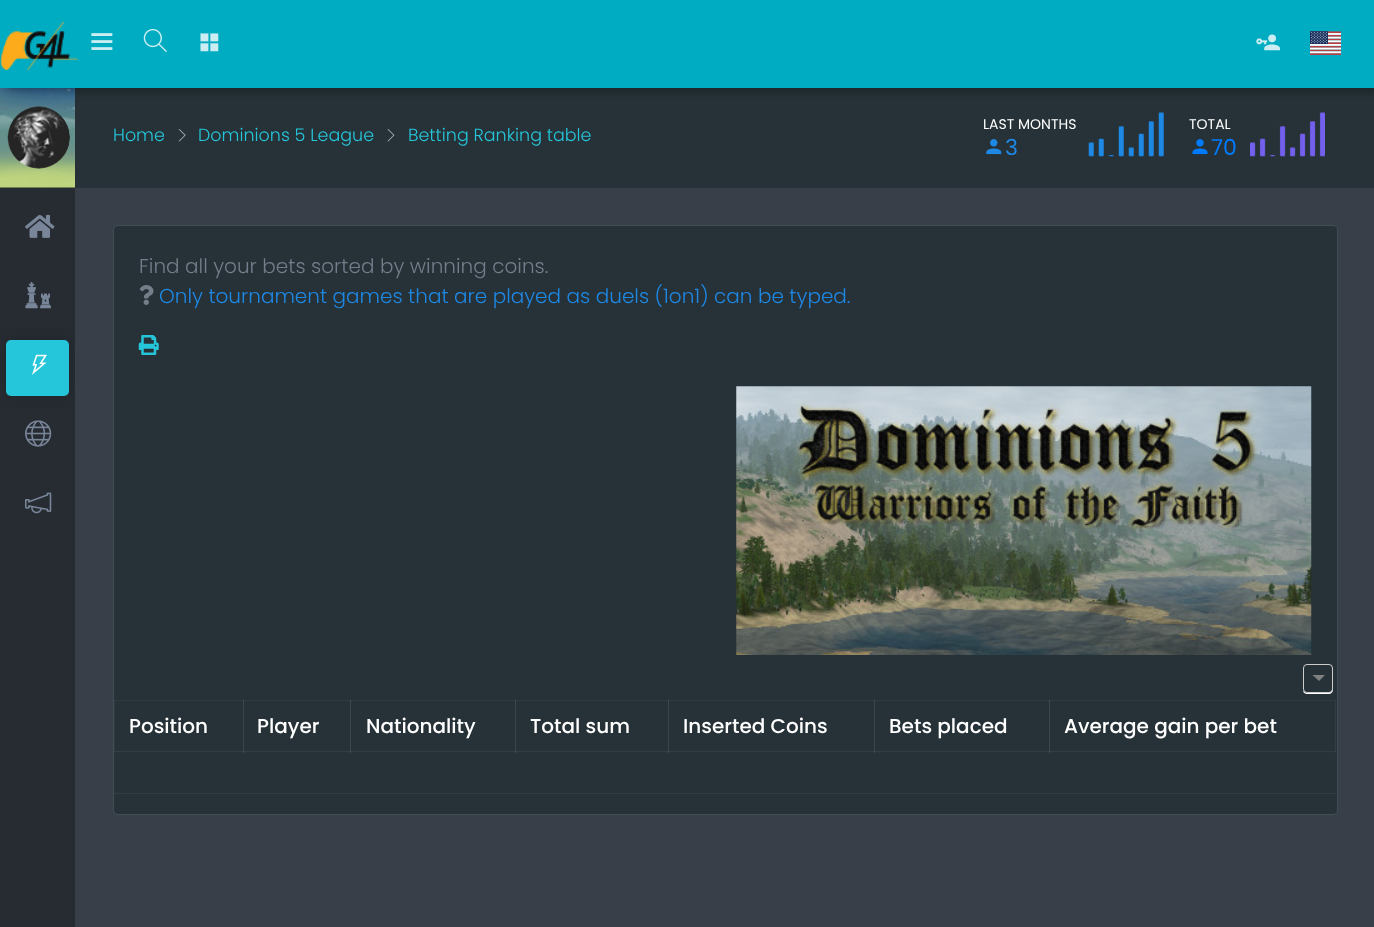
<svg xmlns="http://www.w3.org/2000/svg" width="1374" height="927">
<defs>
<clipPath id="clip1"><rect x="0" y="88" width="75" height="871"/></clipPath>
</defs>
<rect width="100%" height="100%" fill="#383f48"/>
<rect y="187" width="75" height="740" fill="#272c33"/>
<image x="0" y="88" width="75" height="100" href="media/7.png"/>
<image x="7" y="106" width="63" height="63" href="media/8.png"/>
<rect x="75" y="88" width="1299" height="100" fill="#263238"/>
<rect x="6" width="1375" height="88" fill="#00000080" filter="blur(6px)"/>
<rect width="1374" height="88" fill="#00acc1"/>
<image x="0" y="21" width="79" height="49" href="media/1.png"/>
<image x="91" y="33" width="22" height="17" href="media/2.png"/>
<image x="143" y="28" width="24" height="24" href="media/3.png"/>
<image x="200" y="33" width="19" height="19" href="media/4.png"/>
<image x="1256" y="34" width="24" height="17" href="media/5.png"/>
<image x="1310" y="31" width="31" height="24" href="media/6.png"/>
<image x="25" y="214" width="30" height="24" href="media/9.png"/>
<image x="25" y="282" width="26" height="27" href="media/10.png"/>
<g clip-path="url(#clip1)">
<rect x="6" y="340" width="63" height="56" rx="5" fill="#00000033" filter="blur(6px)"/>
</g>
<rect x="6" y="340" width="63" height="56" rx="5" fill="#26c6da"/>
<image x="32" y="354" width="15" height="21" href="media/11.png"/>
<image x="25" y="420" width="27" height="27" href="media/12.png"/>
<image x="25" y="492" width="27" height="22" href="media/13.png"/>
<text x="113" y="141" style="font-family:Poppins;font-size:17.5px;font-weight:300;fill:#26c6da">Home</text>
<image x="178" y="129" width="8" height="13" href="media/14.png"/>
<text x="198" y="141" style="font-family:Poppins;font-size:17.5px;font-weight:300;fill:#26c6da">Dominions 5 League</text>
<image x="387" y="129" width="8" height="13" href="media/15.png"/>
<text x="408" y="141" style="font-family:Poppins;font-size:17.5px;font-weight:300;fill:#26c6da">Betting Ranking table</text>
<text x="983" y="129" style="font-family:Poppins;font-size:14px;fill:#fff">LAST MONTHS</text>
<image x="986" y="139" width="16" height="16" href="media/16.png"/>
<text x="1005" y="155" style="font-family:Poppins;font-size:22px;fill:#1e88e5">3</text>
<image x="1088" y="112" width="76" height="45" href="media/17.png"/>
<text x="1189" y="129" style="font-family:Poppins;font-size:14px;fill:#fff">TOTAL</text>
<image x="1192" y="139" width="16" height="16" href="media/18.png"/>
<text x="1211" y="155" style="font-family:Poppins;font-size:22px;fill:#007bff">70</text>
<image x="1250" y="112" width="75" height="45" href="media/19.png"/>
<rect x="113.5" y="225.5" width="1224" height="589" rx="4.5" fill="#263238" stroke="#3e4e56"/>
<text x="139" y="273" style="font-family:Poppins;font-size:20px;font-weight:300;fill:#747d8a">Find all your bets sorted by winning coins.</text>
<image x="139" y="285" width="15" height="20" href="media/20.png"/>
<text x="159" y="303" style="font-family:Poppins;font-size:20px;font-weight:300;fill:#1e88e5">Only tournament games that are played as duels (1on1) can be typed.</text>
<image x="138" y="335" width="21" height="20" href="media/21.png"/>
<image x="736" y="386" width="576" height="269" href="media/22.png"/>
<path d="M1303 690.5c0 2 2 3.5 4 3.5h22c2 0 4-2 4-4v-21c0-1 0-1.5-.5-2v22.5c-1 3.5-5 3-7.5 3h-15c-2.5 0-5.5 .5-7-2z" fill="#fff"/>
<rect x="1303.5" y="664.5" width="29" height="28" rx="3.5" fill="none" stroke="#ccc"/>
<path d="M1312.5 675h12.5l-6 6z" fill="#808080"/>
<rect x="114" y="700" width="1" height="53" fill="#34373a"/>
<rect x="114" y="751" width="1" height="1" fill="#3d4145"/>
<rect x="114" y="700" width="1222" height="1" fill="#34373a"/>
<rect x="114" y="700" width="1" height="1" fill="#3d4145"/>
<rect x="243" y="700" width="1" height="1" fill="#4c5056"/>
<rect x="350" y="700" width="1" height="1" fill="#4c5056"/>
<rect x="515" y="700" width="1" height="1" fill="#4c5056"/>
<rect x="668" y="700" width="1" height="1" fill="#4c5056"/>
<rect x="874" y="700" width="1" height="1" fill="#4c5056"/>
<rect x="115" y="751" width="128" height="1" fill="#313c43"/>
<text x="129" y="733" style="font-family:Poppins;font-size:20px;font-weight:500;fill:#fff">Position</text>
<rect x="243" y="701" width="1" height="52" fill="#3a454c"/>
<rect x="243" y="751" width="272" height="1" fill="#313c43"/>
<rect x="243" y="751" width="1" height="1" fill="#49545b"/>
<rect x="350" y="701" width="1" height="52" fill="#3a454c"/>
<rect x="350" y="751" width="1" height="1" fill="#49545b"/>
<text x="257" y="733" style="font-family:Poppins;font-size:20px;font-weight:500;fill:#fff">Player</text>
<text x="366" y="733" style="font-family:Poppins;font-size:20px;font-weight:500;fill:#fff">Nationality</text>
<rect x="515" y="701" width="1" height="52" fill="#3a454c"/>
<rect x="515" y="751" width="359" height="1" fill="#313c43"/>
<rect x="515" y="751" width="1" height="1" fill="#49545b"/>
<rect x="668" y="701" width="1" height="52" fill="#3a454c"/>
<rect x="668" y="751" width="1" height="1" fill="#49545b"/>
<text x="530" y="733" style="font-family:Poppins;font-size:20px;font-weight:500;fill:#fff">Total sum</text>
<text x="683" y="733" style="font-family:Poppins;font-size:20px;font-weight:500;fill:#fff">Inserted Coins</text>
<rect x="874" y="701" width="1" height="52" fill="#3a454c"/>
<rect x="874" y="751" width="175" height="1" fill="#313c43"/>
<rect x="874" y="751" width="1" height="1" fill="#49545b"/>
<text x="889" y="733" style="font-family:Poppins;font-size:20px;font-weight:500;fill:#fff">Bets placed</text>
<rect x="1049" y="701" width="1" height="52" fill="#3a454c"/>
<rect x="1049" y="751" width="287" height="1" fill="#313c43"/>
<rect x="1049" y="751" width="1" height="1" fill="#49545b"/>
<rect x="1335" y="701" width="1" height="52" fill="#313c43"/>
<rect x="1335" y="751" width="1" height="1" fill="#3a454c"/>
<rect x="1049" y="700" width="1" height="1" fill="#4c5056"/>
<rect x="1335" y="700" width="1" height="1" fill="#3d4145"/>
<text x="1064" y="733" style="font-family:Poppins;font-size:20px;font-weight:500;fill:#fff">Average gain per bet</text>
<rect x="114" y="793" width="1222" height="1" fill="#313c43"/>
</svg>
